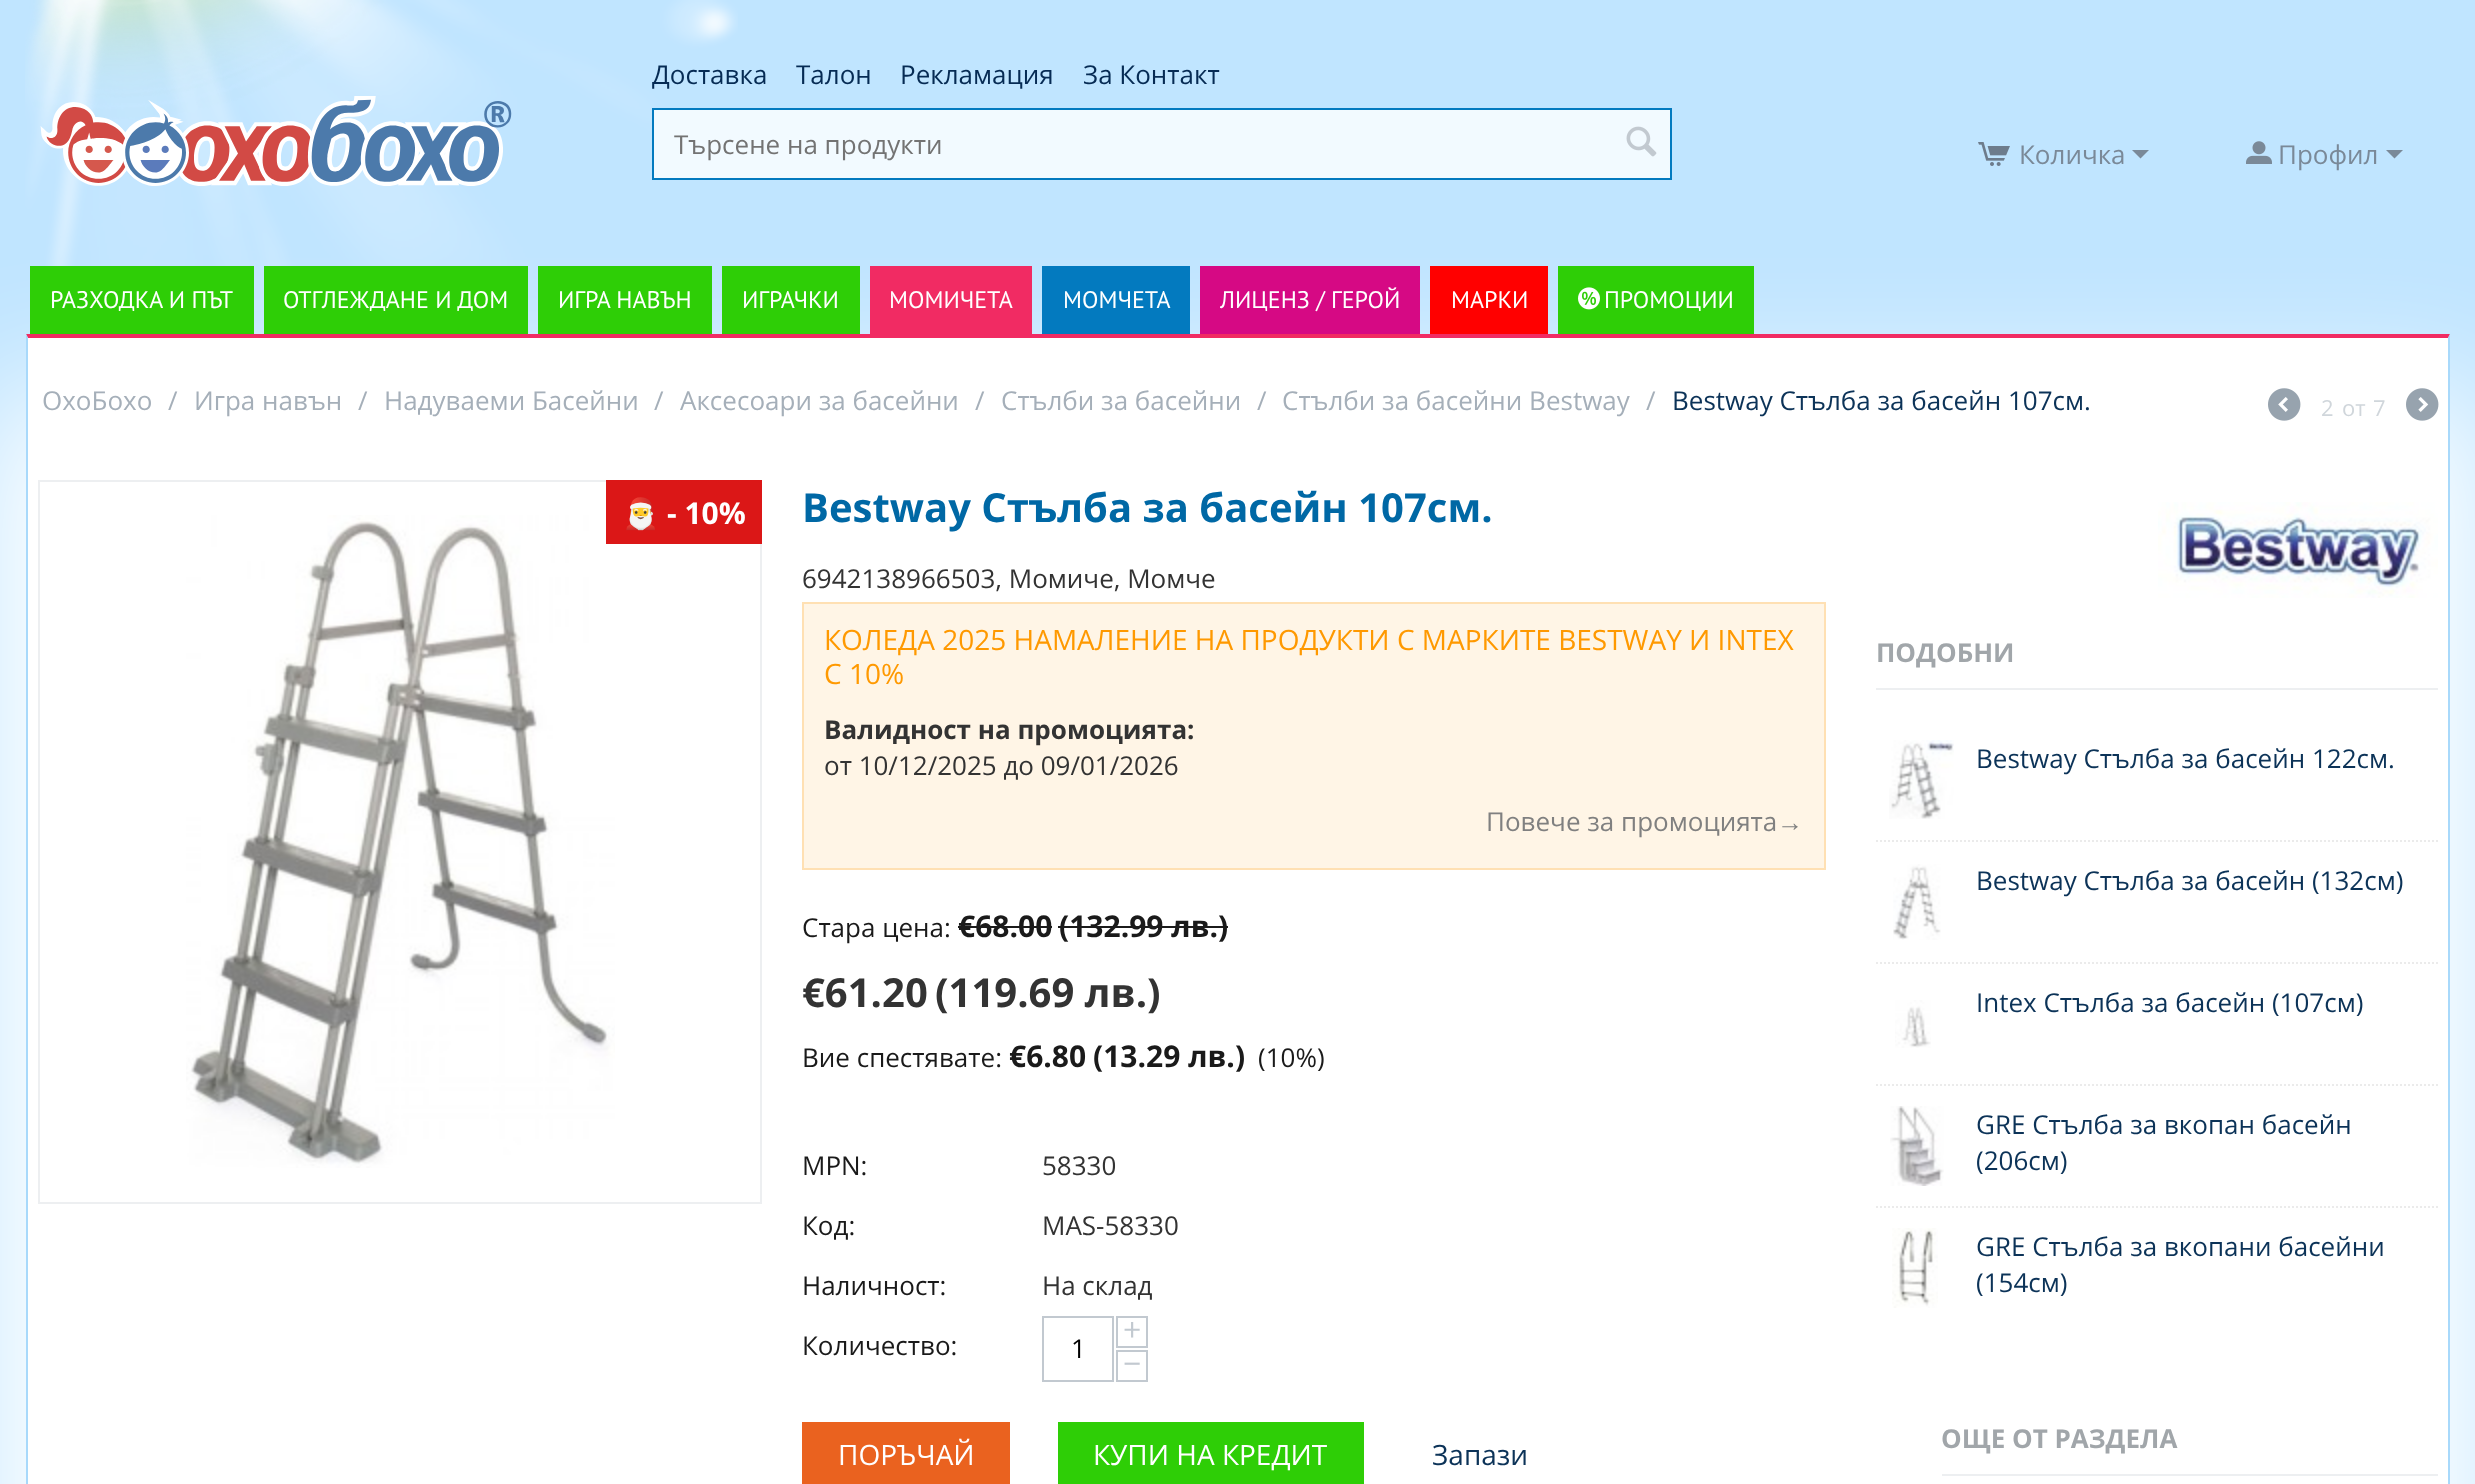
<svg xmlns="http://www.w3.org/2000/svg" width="2475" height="1484">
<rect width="100%" height="100%" fill="#c0e5ff"/>
<image x="25" y="0" width="713" height="312" href="media/1.png"/>
<image x="40" y="96" width="472" height="90" href="media/2.png"/>
<text x="652" y="84" style="font-family:Open Sans;font-size:26px;fill:#062b54">Доставка</text>
<text x="796" y="84" style="font-family:Open Sans;font-size:26px;fill:#062b54">Талон</text>
<text x="900" y="84" style="font-family:Open Sans;font-size:26px;fill:#062b54">Рекламация</text>
<text x="1083" y="84" style="font-family:Open Sans;font-size:26px;fill:#062b54">За Контакт</text>
<rect x="653" y="109" width="1018" height="70" fill="#ffffffc9" stroke="#037abf" stroke-width="2"/>
<text x="674" y="154" style="font-family:Open Sans;font-size:26px;fill:#737373">Търсене на продукти</text>
<image x="1626" y="126" width="31" height="31" href="media/3.png"/>
<image x="1978" y="142" width="32" height="24" href="media/4.png"/>
<text x="2019" y="164" style="font-family:Open Sans;font-size:26px;fill:#7a8998">Количка</text>
<path d="M2140.5 158.5l-8.5-8.5h17z" fill="#7a8998"/>
<image x="2246" y="141" width="26" height="23" href="media/5.png"/>
<text x="2278" y="164" style="font-family:Open Sans;font-size:26px;fill:#7a8998">Профил</text>
<path d="M2394.5 158.5l-8.5-8.5h17z" fill="#7a8998"/>
<rect x="-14" y="390" width="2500" height="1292" fill="#fff" filter="blur(66px)"/>
<rect x="30" y="266" width="224" height="68" fill="#2ece06"/>
<text x="50" y="308" style="font-family:PT Sans;font-size:24px;fill:#fff">РАЗХОДКА И ПЪТ</text>
<rect x="264" y="266" width="264" height="68" fill="#2ece06"/>
<text x="283" y="308" style="font-family:PT Sans;font-size:24px;fill:#fff">ОТГЛЕЖДАНЕ И ДОМ</text>
<rect x="538" y="266" width="174" height="68" fill="#2ece06"/>
<text x="558" y="308" style="font-family:PT Sans;font-size:24px;fill:#fff">ИГРА НАВЪН</text>
<rect x="722" y="266" width="138" height="68" fill="#2ece06"/>
<text x="742" y="308" style="font-family:PT Sans;font-size:24px;fill:#fff">ИГРАЧКИ</text>
<rect x="870" y="266" width="162" height="68" fill="#f12b63"/>
<text x="889" y="308" style="font-family:PT Sans;font-size:24px;fill:#fff">МОМИЧЕТА</text>
<rect x="1042" y="266" width="148" height="68" fill="#037abf"/>
<text x="1063" y="308" style="font-family:PT Sans;font-size:24px;fill:#fff">МОМЧЕТА</text>
<rect x="1200" y="266" width="220" height="68" fill="#d60984"/>
<text x="1220" y="308" style="font-family:PT Sans;font-size:24px;fill:#fff">ЛИЦЕНЗ / ГЕРОЙ</text>
<rect x="1430" y="266" width="118" height="68" fill="#f00"/>
<text x="1451" y="308" style="font-family:PT Sans;font-size:24px;fill:#fff">МАРКИ</text>
<rect x="1558" y="266" width="196" height="68" fill="#2ece06"/>
<image x="1578" y="287" width="22" height="23" href="media/6.png"/>
<text x="1604" y="308" style="font-family:PT Sans;font-size:24px;fill:#fff">ПРОМОЦИИ</text>
<rect x="28" y="338" width="2420" height="1146" fill="#fff"/>
<path d="M26 334h2424l-2 4h-2420z" fill="#f12b63"/>
<path d="M2450 334v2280l-2-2v-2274z" fill="#a8d9fb"/>
<path d="M26 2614v-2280l2 4v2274z" fill="#a8d9fb"/>
<text x="42" y="410" style="font-family:Open Sans;font-size:26px;fill:#a5afb9">ОхоБохо</text>
<text x="168" y="410" style="font-family:Open Sans;font-size:26px;fill:#a5afb9">/</text>
<text x="194" y="410" style="font-family:Open Sans;font-size:26px;fill:#a5afb9">Игра навън</text>
<text x="358" y="410" style="font-family:Open Sans;font-size:26px;fill:#a5afb9">/</text>
<text x="384" y="410" style="font-family:Open Sans;font-size:26px;fill:#a5afb9">Надуваеми Басейни</text>
<text x="654" y="410" style="font-family:Open Sans;font-size:26px;fill:#a5afb9">/</text>
<text x="680" y="410" style="font-family:Open Sans;font-size:26px;fill:#a5afb9">Аксесоари за басейни</text>
<text x="975" y="410" style="font-family:Open Sans;font-size:26px;fill:#a5afb9">/</text>
<text x="1001" y="410" style="font-family:Open Sans;font-size:26px;fill:#a5afb9">Стълби за басейни</text>
<text x="1257" y="410" style="font-family:Open Sans;font-size:26px;fill:#a5afb9">/</text>
<text x="1282" y="410" style="font-family:Open Sans;font-size:26px;fill:#a5afb9">Стълби за басейни Bestway</text>
<text x="1646" y="410" style="font-family:Open Sans;font-size:26px;fill:#a5afb9">/</text>
<text x="1672" y="410" style="font-family:Open Sans;font-size:26px;fill:#0c3358">Bestway Стълба за басейн 107см.</text>
<image x="2268" y="388" width="33" height="33" href="media/7.png"/>
<text x="2321" y="416" style="font-family:Open Sans;font-size:22px;fill:#d0d6db">2</text>
<text x="2342" y="416" style="font-family:Open Sans;font-size:22px;fill:#d0d6db">от</text>
<text x="2373" y="416" style="font-family:Open Sans;font-size:22px;fill:#d0d6db">7</text>
<image x="2406" y="388" width="33" height="33" href="media/8.png"/>
<rect x="39" y="481" width="722" height="722" fill="none" stroke="#edeff1" stroke-width="2"/>
<image x="186" y="515" width="429" height="653" href="media/9.png"/>
<rect x="606" y="480" width="156" height="64" fill="#db1717"/>
<text x="622" y="524" style="font-family:Noto Color Emoji;font-size:30px;font-weight:bold;fill:#fff">🎅</text>
<text x="667" y="524" style="font-family:Open Sans;font-size:30px;font-weight:bold;fill:#fff">- 10%</text>
<text x="802" y="522" style="font-family:Open Sans;font-size:40px;font-weight:bold;fill:#0068a5">Bestway Стълба за басейн 107см.</text>
<text x="802" y="588" style="font-family:Open Sans;font-size:26px;fill:#333">6942138966503, Момиче, Момче</text>
<rect x="803" y="603" width="1022" height="266" fill="#fff5e6" stroke="#ffe0b3" stroke-width="2"/>
<text x="824" y="650" style="font-family:Open Sans;font-size:28px;fill:#f90">КОЛЕДА 2025 НАМАЛЕНИЕ НА ПРОДУКТИ С МАРКИТЕ BESTWAY И INTEX</text>
<text x="824" y="684" style="font-family:Open Sans;font-size:28px;fill:#f90">С 10%</text>
<text x="824" y="739" style="font-family:Open Sans;font-size:26px;font-weight:bold;fill:#333">Валидност на промоцията:</text>
<text x="824" y="775" style="font-family:Open Sans;font-size:26px;fill:#333">от 10/12/2025 до 09/01/2026</text>
<text x="1486" y="831" style="font-family:Open Sans;font-size:26px;fill:#808080">Повече за промоцията</text>
<text x="1777" y="831" style="font-family:Liberation Serif;font-size:26px;fill:#808080">→</text>
<text x="802" y="937" style="font-family:Open Sans;font-size:26px;fill:#1a1a1a">Стара цена:</text>
<text x="958" y="937" style="font-family:Open Sans;font-size:30px;font-weight:bold;fill:#1a1a1a">€68.00</text>
<rect x="958" y="926" width="94" height="2" fill="#1b1b1b"/>
<text x="1059" y="937" style="font-family:Open Sans;font-size:30px;font-weight:bold;fill:#1a1a1a">(132.99 лв.)</text>
<rect x="1058" y="926" width="170" height="2" fill="#1b1b1b"/>
<text x="802" y="1007" style="font-family:Open Sans;font-size:40px;font-weight:bold;fill:#333">€61.20</text>
<text x="935" y="1007" style="font-family:Open Sans;font-size:40px;font-weight:bold;fill:#333">(119.69 лв.)</text>
<text x="802" y="1067" style="font-family:Open Sans;font-size:26px;fill:#1a1a1a">Вие спестявате:</text>
<text x="1009" y="1067" style="font-family:Open Sans;font-size:30px;font-weight:bold;fill:#1a1a1a">€6.80</text>
<text x="1093" y="1067" style="font-family:Open Sans;font-size:30px;font-weight:bold;fill:#1a1a1a">(13.29 лв.)</text>
<text x="1258" y="1067" style="font-family:Open Sans;font-size:26px;fill:#1a1a1a">(10%)</text>
<text x="802" y="1175" style="font-family:Open Sans;font-size:26px;fill:#1a1a1a">MPN:</text>
<text x="1042" y="1175" style="font-family:Open Sans;font-size:26px;fill:#333">58330</text>
<text x="802" y="1235" style="font-family:Open Sans;font-size:26px;fill:#1a1a1a">Код:</text>
<text x="1042" y="1235" style="font-family:Open Sans;font-size:26px;fill:#333">MAS-58330</text>
<text x="802" y="1295" style="font-family:Open Sans;font-size:26px;fill:#1a1a1a">Наличност:</text>
<text x="1042" y="1295" style="font-family:Open Sans;font-size:26px;fill:#333">На склад</text>
<text x="802" y="1355" style="font-family:Open Sans;font-size:26px;fill:#1a1a1a">Количество:</text>
<rect x="1117" y="1317" width="30" height="30" fill="none" stroke="#c2c9d0" stroke-width="2"/>
<text x="1123" y="1341" style="font-family:Open Sans;font-size:32px;fill:#c2c9d0">+</text>
<rect x="1043" y="1317" width="70" height="64" fill="none" stroke="#c2c9d0" stroke-width="2"/>
<text x="1071" y="1358" style="font-family:Open Sans;font-size:26px;fill:#000">1</text>
<rect x="1117" y="1351" width="30" height="30" fill="none" stroke="#c2c9d0" stroke-width="2"/>
<text x="1123" y="1375" style="font-family:Open Sans;font-size:32px;fill:#c2c9d0">−</text>
<rect x="802" y="1422" width="208" height="62" fill="#ea621f"/>
<text x="838" y="1465" style="font-family:Open Sans;font-size:28px;fill:#fff">ПОРЪЧАЙ</text>
<rect x="1058" y="1422" width="306" height="62" fill="#2ece06"/>
<text x="1093" y="1465" style="font-family:Open Sans;font-size:28px;fill:#fff">КУПИ НА КРЕДИТ</text>
<text x="1432" y="1465" style="font-family:Open Sans;font-size:28px;fill:#0c3358">Запази</text>
<image x="2158" y="502" width="280" height="96" href="media/10.png"/>
<rect x="1876" y="688" width="562" height="2" fill="#edeff1"/>
<text x="1876" y="662" style="font-family:Open Sans;font-size:26px;font-weight:bold;fill:#a1a6aa">ПОДОБНИ</text>
<path d="M1876 841h562" fill="none" stroke="#ebebeb" stroke-width="2" stroke-dasharray="2 2"/>
<image x="1889" y="740" width="65" height="79" href="media/11.png"/>
<text x="1976" y="768" style="font-family:Open Sans;font-size:26px;fill:#0c3358">Bestway Стълба за басейн 122см.</text>
<path d="M1876 963h562" fill="none" stroke="#ebebeb" stroke-width="2" stroke-dasharray="2 2"/>
<image x="1893" y="864" width="48" height="76" href="media/12.png"/>
<text x="1976" y="890" style="font-family:Open Sans;font-size:26px;fill:#0c3358">Bestway Стълба за басейн (132см)</text>
<path d="M1876 1085h562" fill="none" stroke="#ebebeb" stroke-width="2" stroke-dasharray="2 2"/>
<image x="1895" y="1000" width="36" height="48" href="media/13.png"/>
<text x="1976" y="1012" style="font-family:Open Sans;font-size:26px;fill:#0c3358">Intex Стълба за басейн (107см)</text>
<path d="M1876 1207h562" fill="none" stroke="#ebebeb" stroke-width="2" stroke-dasharray="2 2"/>
<image x="1890" y="1106" width="54" height="80" href="media/14.png"/>
<text x="1976" y="1134" style="font-family:Open Sans;font-size:26px;fill:#0c3358">GRE Стълба за вкопан басейн</text>
<text x="1976" y="1170" style="font-family:Open Sans;font-size:26px;fill:#0c3358">(206см)</text>
<image x="1892" y="1228" width="46" height="80" href="media/15.png"/>
<text x="1976" y="1256" style="font-family:Open Sans;font-size:26px;fill:#0c3358">GRE Стълба за вкопани басейни</text>
<text x="1976" y="1292" style="font-family:Open Sans;font-size:26px;fill:#0c3358">(154см)</text>
<rect x="1942" y="1474" width="496" height="2" fill="#edeff1"/>
<text x="1941" y="1448" style="font-family:Open Sans;font-size:26px;font-weight:bold;fill:#a1a6aa">ОЩЕ ОТ РАЗДЕЛА</text>
</svg>
